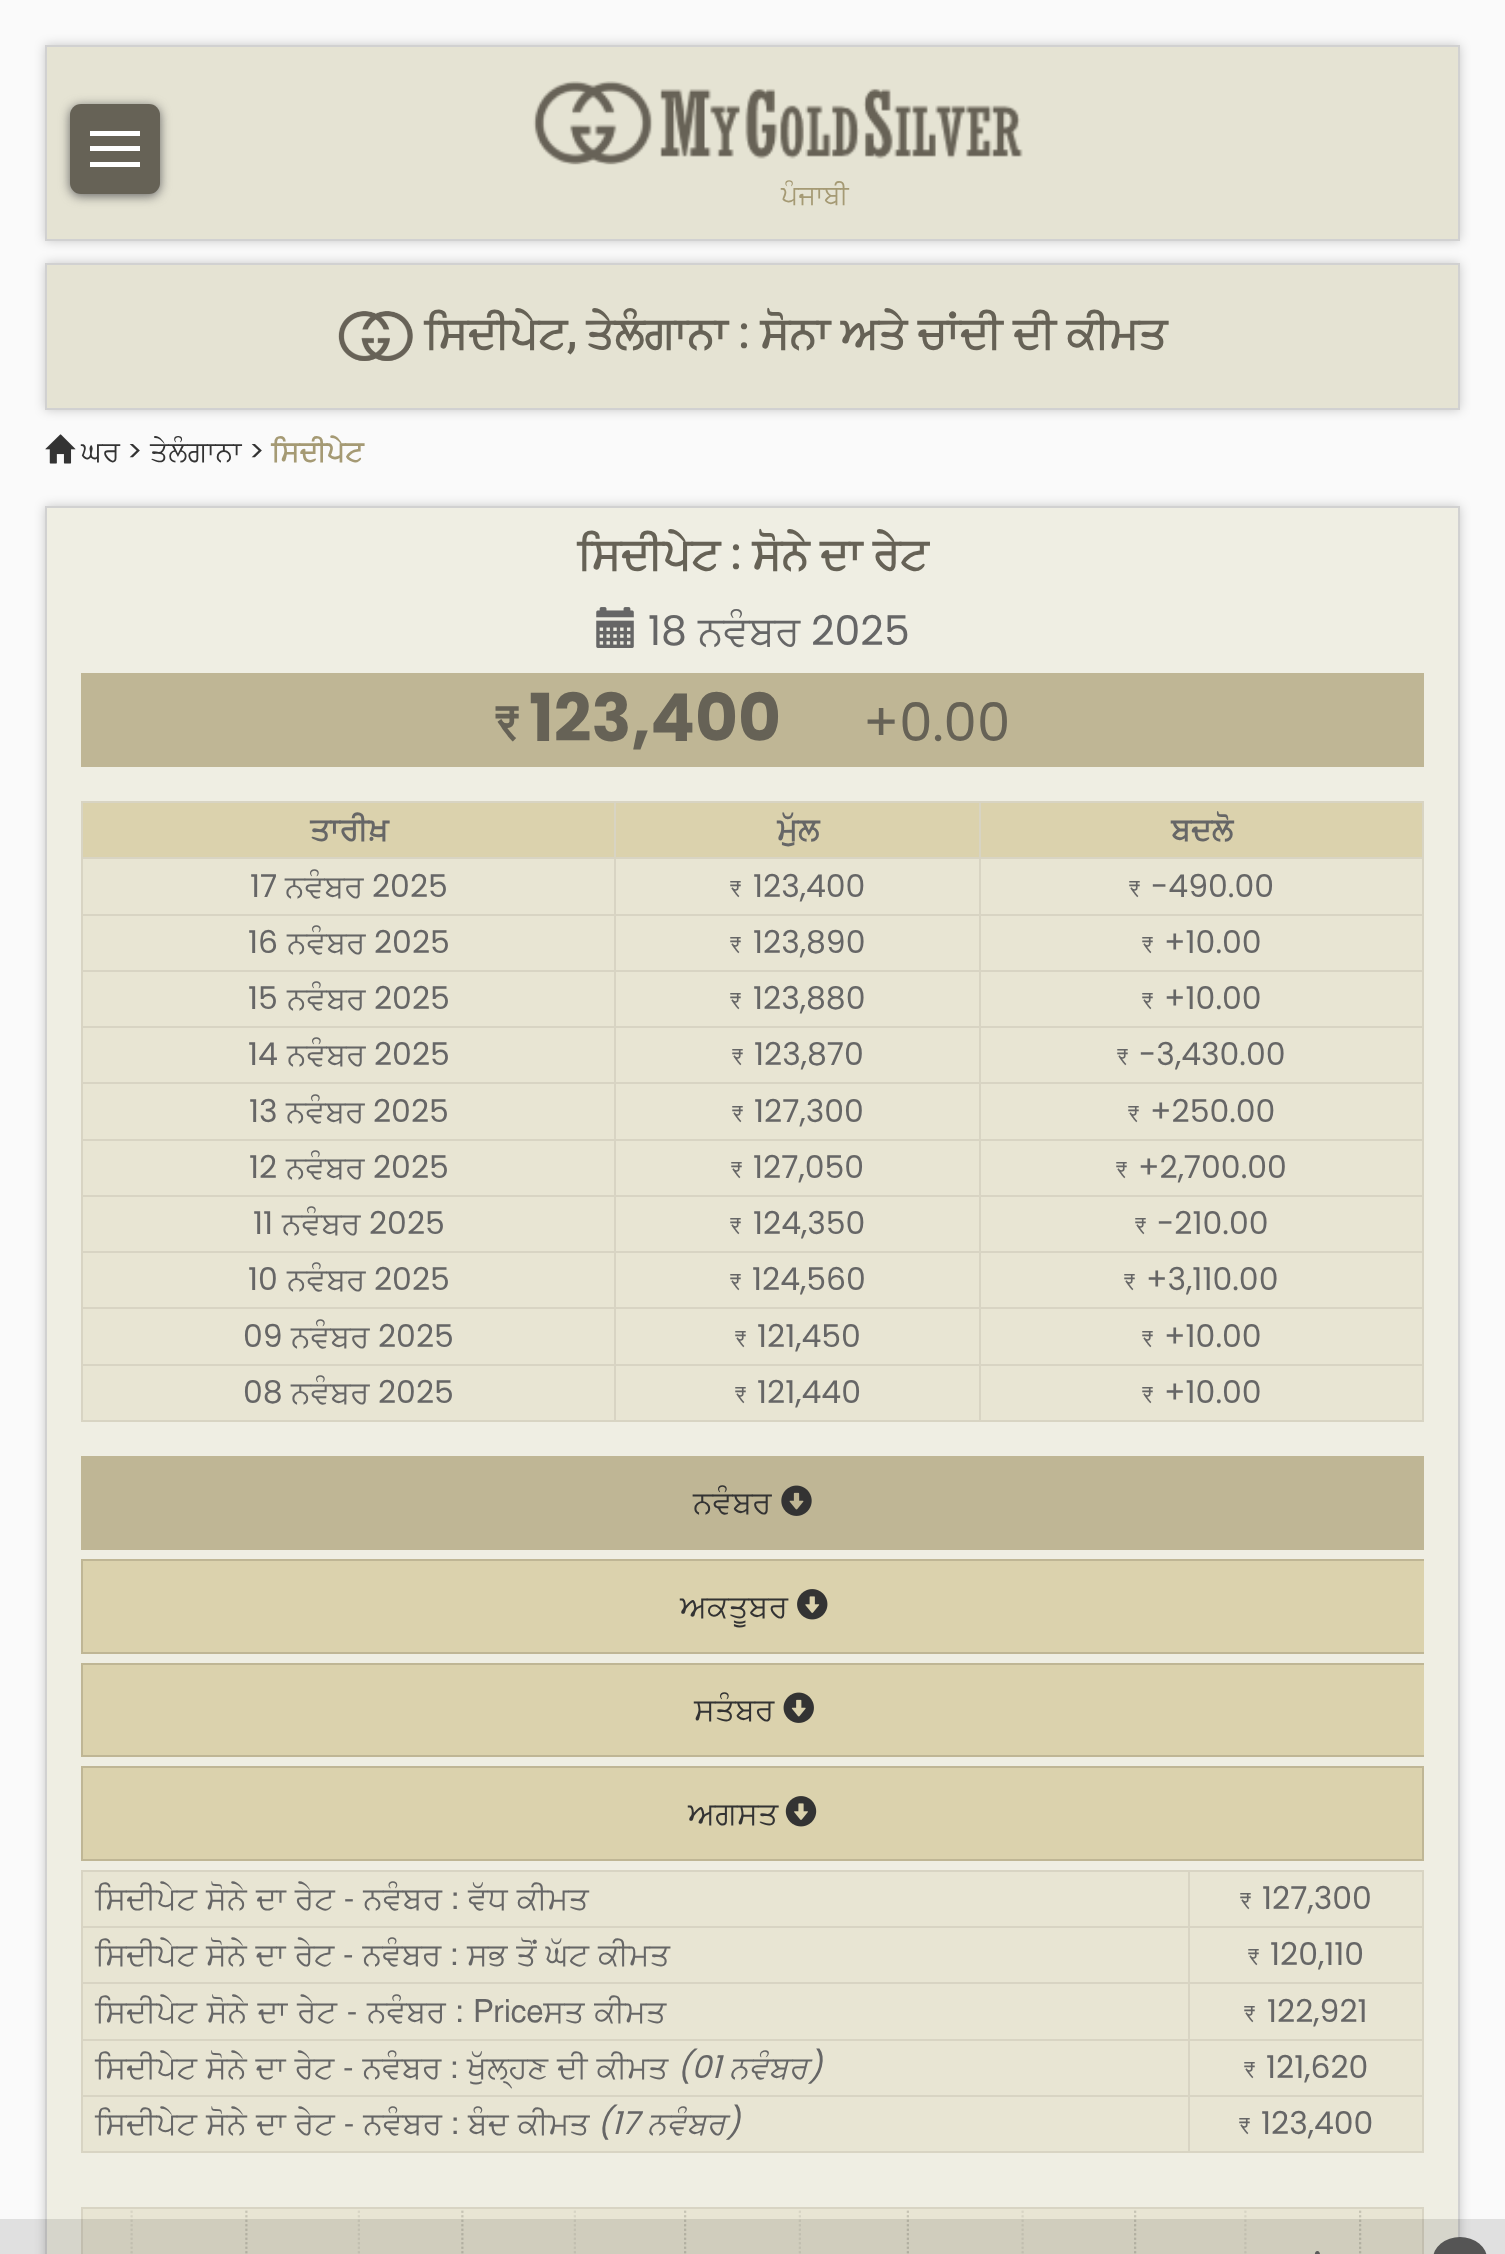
<svg xmlns="http://www.w3.org/2000/svg" width="1505" height="2254">
<rect width="100%" height="100%" fill="#fafafa"/>
<rect x="45" y="45" width="1415" height="196" fill="#00000033" filter="blur(5.5px)"/>
<rect x="46" y="46" width="1413" height="194" fill="#e5e3d3" stroke="#d1d1d1" stroke-width="2"/>
<rect x="70" y="106" width="90" height="90" rx="11" fill="#646464" filter="blur(5.5px)"/>
<rect x="70" y="104" width="90" height="90" rx="11" fill="#666256"/>
<rect x="90" y="131" width="50" height="5" fill="#fff"/>
<rect x="90" y="146" width="50" height="5" fill="#fff"/>
<rect x="90" y="162" width="50" height="5" fill="#fff"/>
<image x="533" y="81" width="490" height="84" href="media/1.png"/>
<text x="781" y="204" style="font-family:FreeSans;font-size:27px;fill:#a59a74">ਪੰਜਾਬੀ</text>
<rect x="45" y="263" width="1415" height="147" fill="#00000033" filter="blur(5.5px)"/>
<rect x="46" y="264" width="1413" height="145" fill="#e5e3d3" stroke="#d1d1d1" stroke-width="2"/>
<image x="338" y="311" width="75" height="50" href="media/2.png"/>
<text x="424" y="348" style="font-family:FreeSans;font-size:44px;font-weight:bold;fill:#666256">ਸਿਦੀਪੇਟ</text>
<text x="567" y="348" style="font-family:Roboto;font-size:44px;font-weight:bold;fill:#666256">,</text>
<text x="586" y="348" style="font-family:FreeSans;font-size:44px;font-weight:bold;fill:#666256">ਤੇਲੰਗਾਨਾ</text>
<text x="738" y="348" style="font-family:Roboto;font-size:44px;font-weight:bold;fill:#666256">:</text>
<text x="760" y="348" style="font-family:FreeSans;font-size:44px;font-weight:bold;fill:#666256">ਸੋਨਾ ਅਤੇ ਚਾਂਦੀ ਦੀ ਕੀਮਤ</text>
<image x="45" y="434" width="31" height="30" href="media/3.png"/>
<text x="81" y="461" style="font-family:FreeSans;font-size:28.5px;fill:#333">ਘਰ</text>
<text x="127" y="461" style="font-family:Poppins;font-size:28.5px;fill:#333">&gt;</text>
<text x="150" y="461" style="font-family:FreeSans;font-size:28.5px;fill:#333">ਤੇਲੰਗਾਨਾ</text>
<text x="249" y="461" style="font-family:Poppins;font-size:28.5px;fill:#333">&gt;</text>
<text x="271" y="461" style="font-family:FreeSans;font-size:28.5px;font-weight:bold;fill:#a59a74">ਸਿਦੀਪੇਟ</text>
<rect x="45" y="506" width="1415" height="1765" fill="#00000033" filter="blur(5.5px)"/>
<rect x="46" y="507" width="1413" height="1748" fill="#efeee3" stroke="#d1d1d1" stroke-width="2"/>
<text x="577" y="569" style="font-family:FreeSans;font-size:44px;font-weight:bold;fill:#666256">ਸਿਦੀਪੇਟ</text>
<text x="730" y="569" style="font-family:Roboto;font-size:44px;font-weight:bold;fill:#666256">:</text>
<text x="752" y="569" style="font-family:FreeSans;font-size:44px;font-weight:bold;fill:#666256">ਸੋਨੇ ਦਾ ਰੇਟ</text>
<image x="596" y="607" width="38" height="41" href="media/4.png"/>
<text x="648" y="645" style="font-family:Poppins;font-size:41px;fill:#666">18</text>
<text x="698" y="645" style="font-family:FreeSans;font-size:41px;fill:#666">ਨਵੰਬਰ</text>
<text x="811" y="645" style="font-family:Poppins;font-size:41px;fill:#666">2025</text>
<rect x="81" y="673" width="1343" height="94" fill="#bfb695"/>
<text x="495" y="741" style="font-family:FreeSans;font-size:46px;font-weight:bold;fill:#666256">₹</text>
<text x="529" y="741" style="font-family:Poppins;font-size:66px;font-weight:bold;fill:#666256">123,400</text>
<text x="863" y="741" style="font-family:Poppins;font-size:53px;fill:#666256">+0.00</text>
<rect x="83" y="859" width="1339" height="561" fill="#e8e5d3"/>
<rect x="81" y="801" width="1343" height="2" fill="#d8d4c3"/>
<rect x="1422" y="801" width="2" height="621" fill="#d8d4c3"/>
<rect x="81" y="1420" width="1343" height="2" fill="#d8d4c3"/>
<rect x="81" y="801" width="2" height="621" fill="#d8d4c3"/>
<rect x="83" y="803" width="896" height="54" fill="#dbd2ad"/>
<text x="310" y="840" style="font-family:FreeSans;font-size:31.5px;font-weight:bold;fill:#666">ਤਾਰੀਖ਼</text>
<rect x="979" y="857" width="445" height="2" fill="#d8d4c3"/>
<rect x="979" y="914" width="445" height="2" fill="#d8d4c3"/>
<rect x="979" y="970" width="445" height="2" fill="#d8d4c3"/>
<rect x="979" y="1026" width="445" height="2" fill="#d8d4c3"/>
<rect x="979" y="1082" width="445" height="2" fill="#d8d4c3"/>
<rect x="979" y="1139" width="445" height="2" fill="#d8d4c3"/>
<rect x="979" y="1195" width="445" height="2" fill="#d8d4c3"/>
<rect x="979" y="1251" width="445" height="2" fill="#d8d4c3"/>
<rect x="979" y="1307" width="445" height="2" fill="#d8d4c3"/>
<rect x="979" y="1364" width="445" height="2" fill="#d8d4c3"/>
<rect x="979" y="1364" width="2" height="58" fill="#d8d4c3"/>
<rect x="614" y="1364" width="367" height="2" fill="#d8d4c3"/>
<rect x="979" y="1307" width="2" height="59" fill="#d8d4c3"/>
<rect x="614" y="1307" width="367" height="2" fill="#d8d4c3"/>
<rect x="979" y="1251" width="2" height="59" fill="#d8d4c3"/>
<rect x="614" y="1251" width="367" height="2" fill="#d8d4c3"/>
<rect x="979" y="1195" width="2" height="58" fill="#d8d4c3"/>
<rect x="614" y="1195" width="367" height="2" fill="#d8d4c3"/>
<rect x="979" y="1139" width="2" height="58" fill="#d8d4c3"/>
<rect x="614" y="1139" width="367" height="2" fill="#d8d4c3"/>
<rect x="979" y="1082" width="2" height="59" fill="#d8d4c3"/>
<rect x="614" y="1082" width="367" height="2" fill="#d8d4c3"/>
<rect x="979" y="1026" width="2" height="59" fill="#d8d4c3"/>
<rect x="614" y="1026" width="367" height="2" fill="#d8d4c3"/>
<rect x="979" y="970" width="2" height="58" fill="#d8d4c3"/>
<rect x="614" y="970" width="367" height="2" fill="#d8d4c3"/>
<rect x="979" y="914" width="2" height="58" fill="#d8d4c3"/>
<rect x="614" y="914" width="367" height="2" fill="#d8d4c3"/>
<rect x="979" y="857" width="2" height="59" fill="#d8d4c3"/>
<rect x="614" y="857" width="367" height="2" fill="#d8d4c3"/>
<rect x="614" y="1364" width="2" height="58" fill="#d8d4c3"/>
<rect x="81" y="1364" width="536" height="2" fill="#d8d4c3"/>
<rect x="614" y="1307" width="2" height="59" fill="#d8d4c3"/>
<rect x="81" y="1307" width="536" height="2" fill="#d8d4c3"/>
<rect x="614" y="1251" width="2" height="59" fill="#d8d4c3"/>
<rect x="81" y="1251" width="536" height="2" fill="#d8d4c3"/>
<rect x="614" y="1195" width="2" height="58" fill="#d8d4c3"/>
<rect x="81" y="1195" width="536" height="2" fill="#d8d4c3"/>
<rect x="614" y="1139" width="2" height="58" fill="#d8d4c3"/>
<rect x="81" y="1139" width="536" height="2" fill="#d8d4c3"/>
<rect x="614" y="1082" width="2" height="59" fill="#d8d4c3"/>
<rect x="81" y="1082" width="536" height="2" fill="#d8d4c3"/>
<rect x="614" y="1026" width="2" height="59" fill="#d8d4c3"/>
<rect x="81" y="1026" width="536" height="2" fill="#d8d4c3"/>
<rect x="614" y="970" width="2" height="58" fill="#d8d4c3"/>
<rect x="81" y="970" width="536" height="2" fill="#d8d4c3"/>
<rect x="614" y="914" width="2" height="58" fill="#d8d4c3"/>
<rect x="81" y="914" width="536" height="2" fill="#d8d4c3"/>
<rect x="614" y="857" width="2" height="59" fill="#d8d4c3"/>
<rect x="81" y="857" width="536" height="2" fill="#d8d4c3"/>
<rect x="614" y="801" width="2" height="59" fill="#d8d4c3"/>
<text x="777" y="840" style="font-family:FreeSans;font-size:31.5px;font-weight:bold;fill:#666">ਮੁੱਲ</text>
<rect x="981" y="803" width="441" height="54" fill="#dbd2ad"/>
<rect x="979" y="801" width="2" height="59" fill="#d8d4c3"/>
<text x="1171" y="840" style="font-family:FreeSans;font-size:31.5px;font-weight:bold;fill:#666">ਬਦਲੋ</text>
<text x="250" y="897" style="font-family:Poppins;font-size:31.5px;fill:#666">17</text>
<text x="285" y="897" style="font-family:FreeSans;font-size:31.5px;fill:#666">ਨਵੰਬਰ</text>
<text x="372" y="897" style="font-family:Poppins;font-size:31.5px;fill:#666">2025</text>
<text x="730" y="897" style="font-family:FreeSans;font-size:22px;fill:#666">₹</text>
<text x="753" y="897" style="font-family:Poppins;font-size:31.5px;fill:#666">123,400</text>
<text x="1129" y="897" style="font-family:FreeSans;font-size:22px;fill:#666">₹</text>
<text x="1151" y="897" style="font-family:Poppins;font-size:31.5px;fill:#666">-490.00</text>
<text x="248" y="953" style="font-family:Poppins;font-size:31.5px;fill:#666">16</text>
<text x="287" y="953" style="font-family:FreeSans;font-size:31.5px;fill:#666">ਨਵੰਬਰ</text>
<text x="374" y="953" style="font-family:Poppins;font-size:31.5px;fill:#666">2025</text>
<text x="730" y="953" style="font-family:FreeSans;font-size:22px;fill:#666">₹</text>
<text x="753" y="953" style="font-family:Poppins;font-size:31.5px;fill:#666">123,890</text>
<text x="1142" y="953" style="font-family:FreeSans;font-size:22px;fill:#666">₹</text>
<text x="1164" y="953" style="font-family:Poppins;font-size:31.5px;fill:#666">+10.00</text>
<text x="248" y="1009" style="font-family:Poppins;font-size:31.5px;fill:#666">15</text>
<text x="287" y="1009" style="font-family:FreeSans;font-size:31.5px;fill:#666">ਨਵੰਬਰ</text>
<text x="374" y="1009" style="font-family:Poppins;font-size:31.5px;fill:#666">2025</text>
<text x="730" y="1009" style="font-family:FreeSans;font-size:22px;fill:#666">₹</text>
<text x="753" y="1009" style="font-family:Poppins;font-size:31.5px;fill:#666">123,880</text>
<text x="1142" y="1009" style="font-family:FreeSans;font-size:22px;fill:#666">₹</text>
<text x="1164" y="1009" style="font-family:Poppins;font-size:31.5px;fill:#666">+10.00</text>
<text x="248" y="1065" style="font-family:Poppins;font-size:31.5px;fill:#666">14</text>
<text x="287" y="1065" style="font-family:FreeSans;font-size:31.5px;fill:#666">ਨਵੰਬਰ</text>
<text x="374" y="1065" style="font-family:Poppins;font-size:31.5px;fill:#666">2025</text>
<text x="732" y="1065" style="font-family:FreeSans;font-size:22px;fill:#666">₹</text>
<text x="754" y="1065" style="font-family:Poppins;font-size:31.5px;fill:#666">123,870</text>
<text x="1117" y="1065" style="font-family:FreeSans;font-size:22px;fill:#666">₹</text>
<text x="1139" y="1065" style="font-family:Poppins;font-size:31.5px;fill:#666">-3,430.00</text>
<text x="249" y="1122" style="font-family:Poppins;font-size:31.5px;fill:#666">13</text>
<text x="286" y="1122" style="font-family:FreeSans;font-size:31.5px;fill:#666">ਨਵੰਬਰ</text>
<text x="373" y="1122" style="font-family:Poppins;font-size:31.5px;fill:#666">2025</text>
<text x="732" y="1122" style="font-family:FreeSans;font-size:22px;fill:#666">₹</text>
<text x="754" y="1122" style="font-family:Poppins;font-size:31.5px;fill:#666">127,300</text>
<text x="1128" y="1122" style="font-family:FreeSans;font-size:22px;fill:#666">₹</text>
<text x="1150" y="1122" style="font-family:Poppins;font-size:31.5px;fill:#666">+250.00</text>
<text x="249" y="1178" style="font-family:Poppins;font-size:31.5px;fill:#666">12</text>
<text x="286" y="1178" style="font-family:FreeSans;font-size:31.5px;fill:#666">ਨਵੰਬਰ</text>
<text x="373" y="1178" style="font-family:Poppins;font-size:31.5px;fill:#666">2025</text>
<text x="731" y="1178" style="font-family:FreeSans;font-size:22px;fill:#666">₹</text>
<text x="753" y="1178" style="font-family:Poppins;font-size:31.5px;fill:#666">127,050</text>
<text x="1116" y="1178" style="font-family:FreeSans;font-size:22px;fill:#666">₹</text>
<text x="1138" y="1178" style="font-family:Poppins;font-size:31.5px;fill:#666">+2,700.00</text>
<text x="253" y="1234" style="font-family:Poppins;font-size:31.5px;fill:#666">11</text>
<text x="282" y="1234" style="font-family:FreeSans;font-size:31.5px;fill:#666">ਨਵੰਬਰ</text>
<text x="369" y="1234" style="font-family:Poppins;font-size:31.5px;fill:#666">2025</text>
<text x="730" y="1234" style="font-family:FreeSans;font-size:22px;fill:#666">₹</text>
<text x="753" y="1234" style="font-family:Poppins;font-size:31.5px;fill:#666">124,350</text>
<text x="1135" y="1234" style="font-family:FreeSans;font-size:22px;fill:#666">₹</text>
<text x="1157" y="1234" style="font-family:Poppins;font-size:31.5px;fill:#666">-210.00</text>
<text x="248" y="1290" style="font-family:Poppins;font-size:31.5px;fill:#666">10</text>
<text x="287" y="1290" style="font-family:FreeSans;font-size:31.5px;fill:#666">ਨਵੰਬਰ</text>
<text x="374" y="1290" style="font-family:Poppins;font-size:31.5px;fill:#666">2025</text>
<text x="730" y="1290" style="font-family:FreeSans;font-size:22px;fill:#666">₹</text>
<text x="752" y="1290" style="font-family:Poppins;font-size:31.5px;fill:#666">124,560</text>
<text x="1124" y="1290" style="font-family:FreeSans;font-size:22px;fill:#666">₹</text>
<text x="1146" y="1290" style="font-family:Poppins;font-size:31.5px;fill:#666">+3,110.00</text>
<text x="243" y="1347" style="font-family:Poppins;font-size:31.5px;fill:#666">09</text>
<text x="291" y="1347" style="font-family:FreeSans;font-size:31.5px;fill:#666">ਨਵੰਬਰ</text>
<text x="378" y="1347" style="font-family:Poppins;font-size:31.5px;fill:#666">2025</text>
<text x="735" y="1347" style="font-family:FreeSans;font-size:22px;fill:#666">₹</text>
<text x="757" y="1347" style="font-family:Poppins;font-size:31.5px;fill:#666">121,450</text>
<text x="1142" y="1347" style="font-family:FreeSans;font-size:22px;fill:#666">₹</text>
<text x="1164" y="1347" style="font-family:Poppins;font-size:31.5px;fill:#666">+10.00</text>
<text x="243" y="1403" style="font-family:Poppins;font-size:31.5px;fill:#666">08</text>
<text x="291" y="1403" style="font-family:FreeSans;font-size:31.5px;fill:#666">ਨਵੰਬਰ</text>
<text x="378" y="1403" style="font-family:Poppins;font-size:31.5px;fill:#666">2025</text>
<text x="735" y="1403" style="font-family:FreeSans;font-size:22px;fill:#666">₹</text>
<text x="757" y="1403" style="font-family:Poppins;font-size:31.5px;fill:#666">121,440</text>
<text x="1142" y="1403" style="font-family:FreeSans;font-size:22px;fill:#666">₹</text>
<text x="1164" y="1403" style="font-family:Poppins;font-size:31.5px;fill:#666">+10.00</text>
<rect x="81" y="1456" width="1343" height="94" fill="#bfb695"/>
<text x="693" y="1513" style="font-family:FreeSans;font-size:31.5px;fill:#333">ਨਵੰਬਰ</text>
<image x="781" y="1485" width="31" height="31" href="media/5.png"/>
<rect x="83" y="1561" width="1341" height="91" fill="#dbd2ad"/>
<rect x="81" y="1559" width="1343" height="2" fill="#bfb695"/>
<rect x="81" y="1652" width="1343" height="2" fill="#bfb695"/>
<rect x="81" y="1559" width="2" height="95" fill="#bfb695"/>
<text x="680" y="1617" style="font-family:FreeSans;font-size:31.5px;fill:#333">ਅਕਤੂਬਰ</text>
<image x="797" y="1589" width="31" height="31" href="media/6.png"/>
<rect x="83" y="1665" width="1341" height="90" fill="#dbd2ad"/>
<rect x="81" y="1663" width="1343" height="2" fill="#bfb695"/>
<rect x="81" y="1755" width="1343" height="2" fill="#bfb695"/>
<rect x="81" y="1663" width="2" height="94" fill="#bfb695"/>
<text x="694" y="1720" style="font-family:FreeSans;font-size:31.5px;fill:#333">ਸਤੰਬਰ</text>
<image x="783" y="1692" width="31" height="31" href="media/7.png"/>
<rect x="82" y="1767" width="1341" height="93" fill="#dbd2ad" stroke="#bfb695" stroke-width="2"/>
<text x="688" y="1824" style="font-family:FreeSans;font-size:31.5px;fill:#333">ਅਗਸਤ</text>
<image x="785" y="1796" width="32" height="31" href="media/8.png"/>
<rect x="83" y="1872" width="1339" height="279" fill="#e8e5d3"/>
<rect x="81" y="1870" width="1343" height="2" fill="#d8d4c3"/>
<rect x="1422" y="1870" width="2" height="283" fill="#d8d4c3"/>
<rect x="81" y="2151" width="1343" height="2" fill="#d8d4c3"/>
<rect x="81" y="1870" width="2" height="283" fill="#d8d4c3"/>
<text x="95" y="1909" word-spacing="1.25" style="font-family:FreeSans;font-size:31.5px;fill:#666">ਸਿਦੀਪੇਟ ਸੋਨੇ ਦਾ ਰੇਟ - ਨਵੰਬਰ : ਵੱਧ ਕੀਮਤ</text>
<rect x="1188" y="1926" width="236" height="2" fill="#d8d4c3"/>
<rect x="1188" y="1982" width="236" height="2" fill="#d8d4c3"/>
<rect x="1188" y="2039" width="236" height="2" fill="#d8d4c3"/>
<rect x="1188" y="2095" width="236" height="2" fill="#d8d4c3"/>
<rect x="1188" y="2095" width="2" height="58" fill="#d8d4c3"/>
<rect x="81" y="2095" width="1109" height="2" fill="#d8d4c3"/>
<rect x="1188" y="2039" width="2" height="58" fill="#d8d4c3"/>
<rect x="81" y="2039" width="1109" height="2" fill="#d8d4c3"/>
<rect x="1188" y="1982" width="2" height="59" fill="#d8d4c3"/>
<rect x="81" y="1982" width="1109" height="2" fill="#d8d4c3"/>
<rect x="1188" y="1926" width="2" height="59" fill="#d8d4c3"/>
<rect x="81" y="1926" width="1109" height="2" fill="#d8d4c3"/>
<rect x="1188" y="1870" width="2" height="58" fill="#d8d4c3"/>
<text x="1240" y="1909" style="font-family:FreeSans;font-size:22px;fill:#666">₹</text>
<text x="1262" y="1909" style="font-family:Poppins;font-size:31.5px;fill:#666">127,300</text>
<text x="95" y="1965" word-spacing="1.1" style="font-family:FreeSans;font-size:31.5px;fill:#666">ਸਿਦੀਪੇਟ ਸੋਨੇ ਦਾ ਰੇਟ - ਨਵੰਬਰ : ਸਭ ਤੋਂ ਘੱਟ ਕੀਮਤ</text>
<text x="1248" y="1965" style="font-family:FreeSans;font-size:22px;fill:#666">₹</text>
<text x="1270" y="1965" style="font-family:Poppins;font-size:31.5px;fill:#666">120,110</text>
<text x="95" y="2022" word-spacing="2" style="font-family:FreeSans;font-size:31.5px;fill:#666">ਸਿਦੀਪੇਟ ਸੋਨੇ ਦਾ ਰੇਟ - ਨਵੰਬਰ : Priceਸਤ ਕੀਮਤ</text>
<text x="1244" y="2022" style="font-family:FreeSans;font-size:22px;fill:#666">₹</text>
<text x="1267" y="2022" style="font-family:Poppins;font-size:31.5px;fill:#666">122,921</text>
<text x="95" y="2078" word-spacing="1.1" style="font-family:FreeSans;font-size:31.5px;fill:#666">ਸਿਦੀਪੇਟ ਸੋਨੇ ਦਾ ਰੇਟ - ਨਵੰਬਰ : ਖੁੱਲ੍ਹਣ ਦੀ ਕੀਮਤ</text>
<text x="677" y="2078" style="font-family:Poppins;font-size:31.5px;font-style:italic;fill:#666">(01</text>
<text x="729" y="2078" style="font-family:FreeSans;font-size:31.5px;font-style:italic;fill:#666">ਨਵੰਬਰ</text>
<text x="808" y="2078" style="font-family:Poppins;font-size:31.5px;font-style:italic;fill:#666">)</text>
<text x="1244" y="2078" style="font-family:FreeSans;font-size:22px;fill:#666">₹</text>
<text x="1266" y="2078" style="font-family:Poppins;font-size:31.5px;fill:#666">121,620</text>
<text x="95" y="2134" word-spacing="1.25" style="font-family:FreeSans;font-size:31.5px;fill:#666">ਸਿਦੀਪੇਟ ਸੋਨੇ ਦਾ ਰੇਟ - ਨਵੰਬਰ : ਬੰਦ ਕੀਮਤ</text>
<text x="597" y="2134" style="font-family:Poppins;font-size:31.5px;font-style:italic;fill:#666">(17</text>
<text x="647" y="2134" style="font-family:FreeSans;font-size:31.5px;font-style:italic;fill:#666">ਨਵੰਬਰ</text>
<text x="726" y="2134" style="font-family:Poppins;font-size:31.5px;font-style:italic;fill:#666">)</text>
<text x="1239" y="2134" style="font-family:FreeSans;font-size:22px;fill:#666">₹</text>
<text x="1261" y="2134" style="font-family:Poppins;font-size:31.5px;fill:#666">123,400</text>
<rect x="82" y="2208" width="1341" height="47" fill="#e8e5d3" stroke="#d8d4c3" stroke-width="2"/>
<image x="130" y="2210" width="1232" height="44" href="media/9.png"/>
<rect y="2219" width="1505" height="35" fill="#0000001a"/>
<rect x="1433" y="2237" width="54" height="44" rx="27" fill="#555"/>
</svg>
